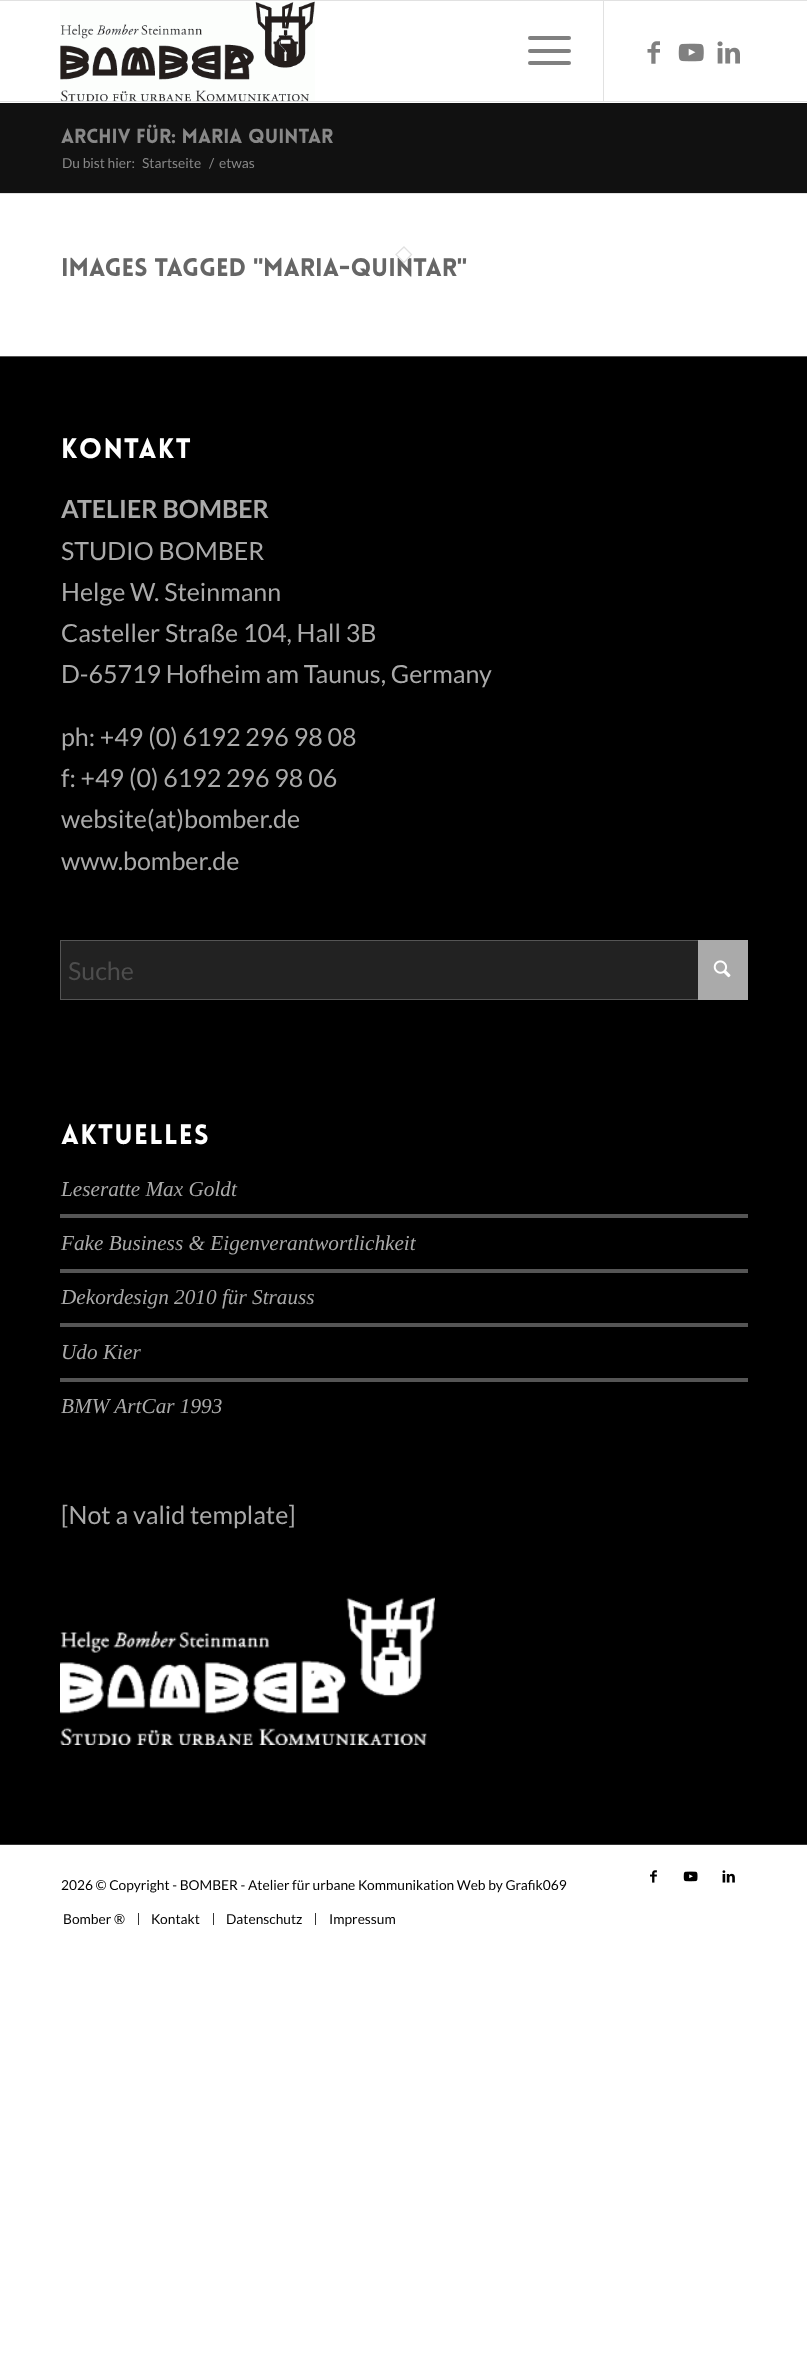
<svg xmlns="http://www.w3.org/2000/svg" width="807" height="2368">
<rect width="100%" height="100%" fill="#fff"/>
<rect width="807" height="1" fill="#e1e1e1"/>
<rect y="101" width="807" height="1" fill="#e1e1e1"/>
<image x="60" y="1" width="255" height="101" href="media/1.png"/>
<rect x="603" y="1" width="1" height="100" fill="#e1e1e1"/>
<rect x="528" y="49" width="43" height="4" rx="2" fill="#808080"/>
<rect x="528" y="36" width="43" height="4" rx="2" fill="#808080"/>
<rect x="528" y="61" width="43" height="4" rx="2" fill="#808080"/>
<image x="647" y="41" width="13" height="23" href="media/2.png"/>
<image x="678" y="43" width="26" height="19" href="media/3.png"/>
<image x="717" y="41" width="23" height="23" href="media/4.png"/>
<rect y="103" width="807" height="90" fill="#111"/>
<text x="61" y="143" style="font-family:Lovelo;font-size:20px;font-weight:900;fill:#888">Archiv für: maria quintar</text>
<text x="62" y="168" style="font-family:Lato;font-size:13.75px;fill:#888">Du bist hier:</text>
<text x="142" y="168" style="font-family:Lato;font-size:13.75px;fill:#888">Startseite</text>
<text x="209" y="168" style="font-family:Lato;font-size:13.75px;fill:#888">/</text>
<text x="219" y="168" style="font-family:Lato;font-size:13.75px;fill:#888">etwas</text>
<rect y="193" width="807" height="1" fill="#e1e1e1"/>
<text x="61" y="276" style="font-family:Lovelo;font-size:25px;font-weight:900;fill:#666">Images tagged "maria-quintar"</text>
<path d="M404 246l8.5 8.5l-8.5 9l-9-9z" fill="#fff"/>
<path d="M404 247l7.5 7.5l-7.5 8l-8-8z" fill="none" stroke="#e1e1e1" stroke-width="1.3"/>
<rect y="357" width="807" height="1487" fill="#000"/>
<rect y="356" width="807" height="1" fill="#555"/>
<text x="61" y="458" style="font-family:Lovelo;font-size:27.5px;font-weight:900;letter-spacing:1.25px;fill:#fff">KONTAKT</text>
<text x="61" y="518" style="font-family:Lato;font-size:25px;font-weight:bold;fill:#aaa">ATELIER BOMBER</text>
<text x="61" y="560" style="font-family:Lato;font-size:25px;fill:#aaa">STUDIO BOMBER</text>
<text x="61" y="601" style="font-family:Lato;font-size:25px;fill:#aaa">Helge W. Steinmann</text>
<text x="61" y="642" style="font-family:Lato;font-size:25px;fill:#aaa">Casteller Straße 104, Hall 3B</text>
<text x="61" y="683" style="font-family:Lato;font-size:25px;fill:#aaa">D-65719 Hofheim am Taunus, Germany</text>
<text x="61" y="746" style="font-family:Lato;font-size:25px;fill:#aaa">ph: +49 (0) 6192 296 98 08</text>
<text x="61" y="787" style="font-family:Lato;font-size:25px;fill:#aaa">f: +49 (0) 6192 296 98 06</text>
<text x="61" y="828" style="font-family:Lato;font-size:25px;fill:#aaa">website(at)bomber.de</text>
<text x="61" y="870" style="font-family:Lato;font-size:25px;fill:#aaa">www.bomber.de</text>
<rect x="61" y="941" width="637" height="58" fill="#222"/>
<rect x="60.5" y="940.5" width="687" height="59" fill="none" stroke="#555"/>
<text x="68" y="980" style="font-family:Lato;font-size:25px;fill:#4d4d4d">Suche</text>
<rect x="698" y="940" width="50" height="60" fill="#aaa"/>
<image x="713" y="960" width="18" height="18" href="media/5.png"/>
<text x="61" y="1144" style="font-family:Lovelo;font-size:27.5px;font-weight:900;letter-spacing:1.25px;fill:#fff">AKTUELLES</text>
<text x="61" y="1196" style="font-family:Liberation Serif;font-size:21.25px;font-style:italic;fill:#aaa">Leseratte Max Goldt</text>
<rect x="60" y="1214" width="688" height="4" fill="#555"/>
<text x="61" y="1250" style="font-family:Liberation Serif;font-size:21.25px;font-style:italic;fill:#aaa">Fake Business &amp; Eigenverantwortlichkeit</text>
<rect x="60" y="1269" width="688" height="4" fill="#555"/>
<text x="61" y="1304" style="font-family:Liberation Serif;font-size:21.25px;font-style:italic;fill:#aaa">Dekordesign 2010 für Strauss</text>
<rect x="60" y="1323" width="688" height="4" fill="#555"/>
<text x="61" y="1359" style="font-family:Liberation Serif;font-size:21.25px;font-style:italic;fill:#aaa">Udo Kier</text>
<rect x="60" y="1378" width="688" height="4" fill="#555"/>
<text x="61" y="1413" style="font-family:Liberation Serif;font-size:21.25px;font-style:italic;fill:#aaa">BMW ArtCar 1993</text>
<text x="61" y="1524" style="font-family:Lato;font-size:25px;fill:#aaa">[Not a valid template]</text>
<image x="60" y="1597" width="375" height="148" href="media/6.png"/>
<rect y="1844" width="807" height="1" fill="#333"/>
<image x="650" y="1870" width="7" height="13" href="media/7.png"/>
<image x="683" y="1871" width="15" height="11" href="media/8.png"/>
<image x="722" y="1870" width="13" height="13" href="media/9.png"/>
<text x="61" y="1890" style="font-family:Lato;font-size:13.75px;fill:#000">2026 © Copyright - BOMBER - Atelier für urbane Kommunikation Web by Grafik069</text>
<text x="63" y="1924" style="font-family:Lato;font-size:13.75px;fill:#000">Bomber ®</text>
<rect x="138" y="1913" width="1" height="12" fill="#333"/>
<text x="151" y="1924" style="font-family:Lato;font-size:13.75px;fill:#000">Kontakt</text>
<rect x="213" y="1913" width="1" height="12" fill="#333"/>
<text x="226" y="1924" style="font-family:Lato;font-size:13.75px;fill:#000">Datenschutz</text>
<rect x="315" y="1913" width="1" height="12" fill="#333"/>
<text x="329" y="1924" style="font-family:Lato;font-size:13.75px;fill:#000">Impressum</text>
</svg>
